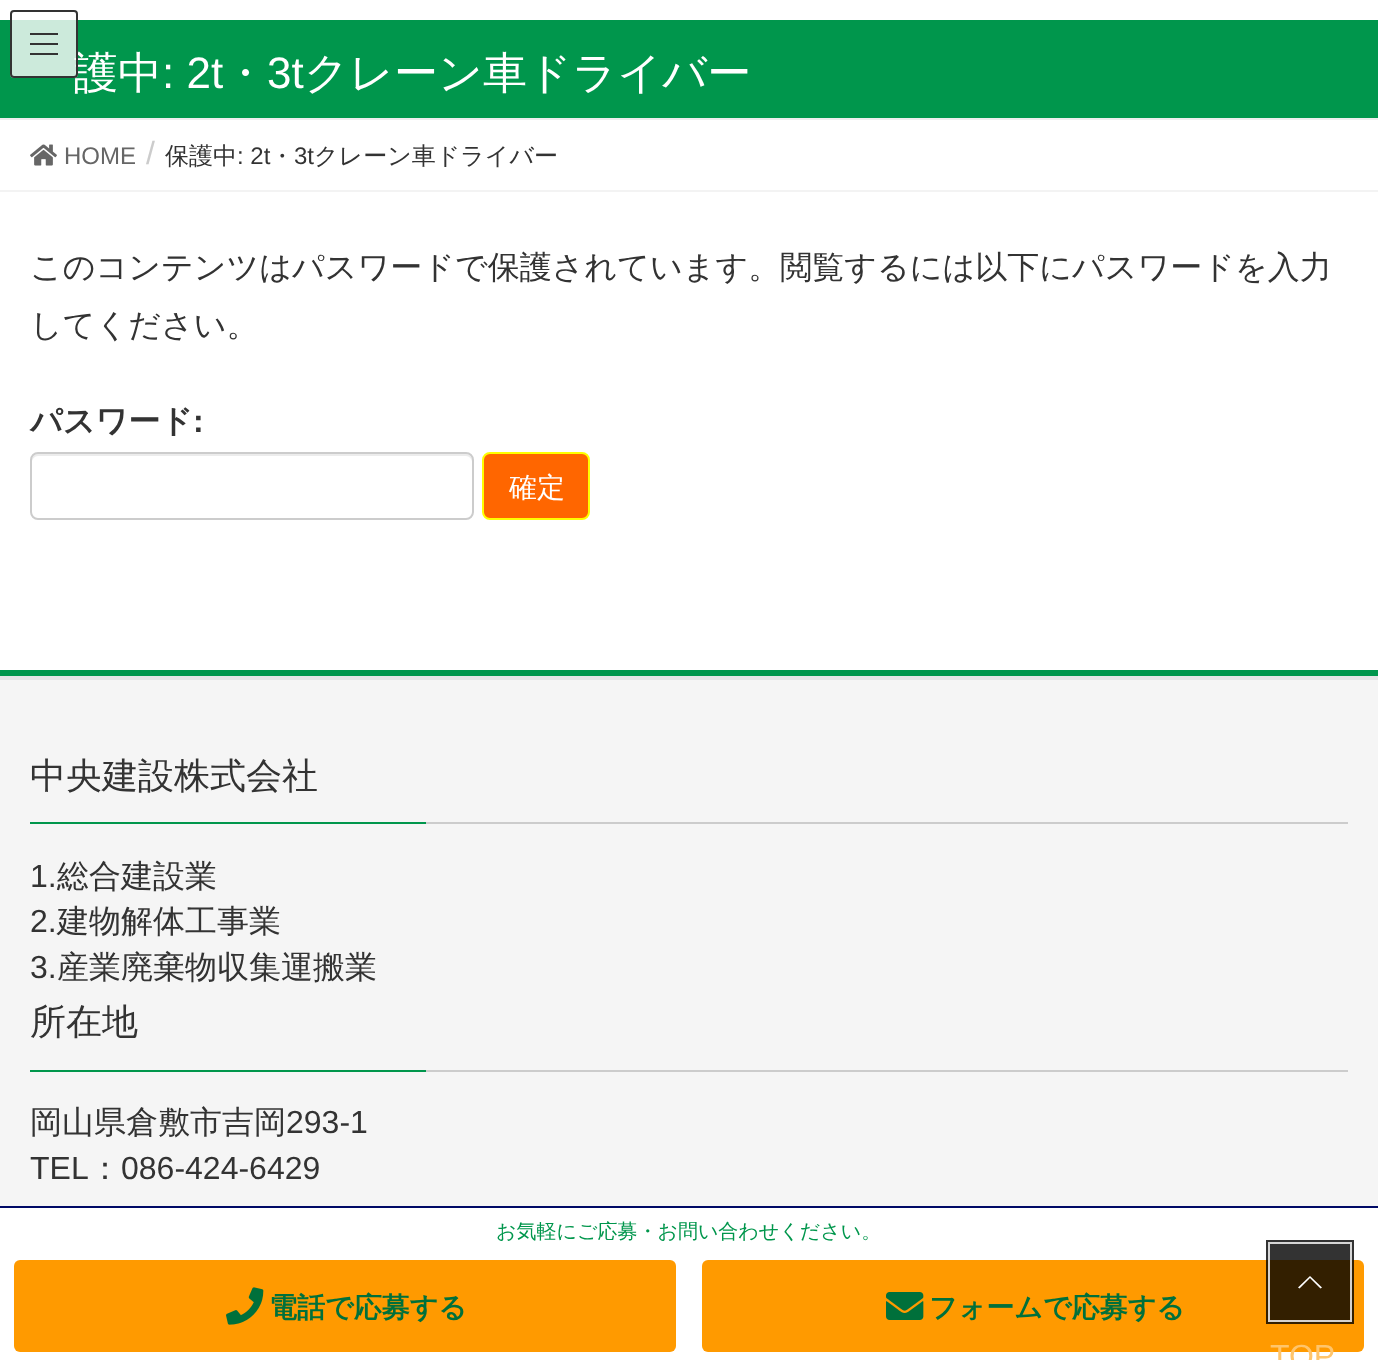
<svg xmlns="http://www.w3.org/2000/svg" width="1378" height="1360">
<rect width="100%" height="100%" fill="#fff"/>
<rect y="20" width="1378" height="98" fill="#00964c"/>
<text x="74" y="88" style="font-family:WenQuanYi Zen Hei;font-size:44px;font-weight:500;fill:#fff">護中</text>
<rect x="10" y="10" width="68" height="68" rx="4" fill="#ffffffcc"/>
<rect x="30" y="33" width="28" height="2" fill="#333"/>
<rect x="30" y="43" width="28" height="2" fill="#333"/>
<rect x="30" y="53" width="28" height="2" fill="#333"/>
<rect x="11" y="11" width="66" height="66" rx="3" fill="none" stroke="#333" stroke-width="2"/>
<rect y="118" width="1378" height="2" fill="#eee"/>
<text x="162" y="88" style="font-family:Liberation Sans;font-size:44px;fill:#fff">: 2t</text>
<text x="223" y="88" style="font-family:WenQuanYi Zen Hei;font-size:44px;font-weight:500;fill:#fff">・</text>
<text x="267" y="88" style="font-family:Liberation Sans;font-size:44px;fill:#fff">3t</text>
<text x="304" y="88" style="font-family:WenQuanYi Zen Hei;font-size:44px;font-weight:500;fill:#fff">クレーン車ドライバー</text>
<rect y="190" width="1378" height="2" fill="#f3f3f3"/>
<image x="30" y="144" width="27" height="22" href="media/1.png"/>
<text x="64" y="164" style="font-family:Liberation Sans;font-size:24px;fill:#666">HOME</text>
<text x="146" y="164" style="font-family:Liberation Sans;font-size:32px;fill:#ccc">/</text>
<text x="165" y="164" style="font-family:WenQuanYi Zen Hei;font-size:24px;font-weight:500;fill:#333">保護中</text>
<text x="237" y="164" style="font-family:Liberation Sans;font-size:24px;fill:#333">: 2t</text>
<text x="270" y="164" style="font-family:WenQuanYi Zen Hei;font-size:24px;font-weight:500;fill:#333">・</text>
<text x="294" y="164" style="font-family:Liberation Sans;font-size:24px;fill:#333">3t</text>
<text x="314" y="164" style="font-family:WenQuanYi Zen Hei;font-size:24px;font-weight:500;fill:#333">クレーン車ドライバー</text>
<text x="30" y="278" style="font-family:WenQuanYi Zen Hei;font-size:32px;font-weight:500;fill:#333">このコンテンツはパスワードで保護されています。閲覧するには以下にパスワードを入力</text>
<text x="30" y="336" style="font-family:WenQuanYi Zen Hei;font-size:32px;font-weight:500;fill:#333">してください。</text>
<text x="30" y="432" style="font-family:WenQuanYi Zen Hei;font-size:32px;font-weight:bold;fill:#333">パスワード</text>
<text x="193" y="432" style="font-family:Liberation Sans;font-size:32px;font-weight:bold;fill:#333">:</text>
<path d="M38 456h428c3 0 6 3 6 6v-2c0-3-3-6-6-6h-428c-3 0-6 3-6 6v2c0-3 3-6 6-6z" fill="#ececec"/>
<rect x="31" y="453" width="442" height="66" rx="7" fill="none" stroke="#ccc" stroke-width="2"/>
<rect x="483" y="453" width="106" height="66" rx="7" fill="#f60" stroke="#ff0" stroke-width="2"/>
<text x="509" y="497" style="font-family:WenQuanYi Zen Hei;font-size:28px;font-weight:500;fill:#fff">確定</text>
<rect y="680" width="1378" height="526" fill="#f5f5f5"/>
<rect y="670" width="1378" height="6" fill="#00964c"/>
<rect y="676" width="1378" height="4" fill="#e5e5e5"/>
<rect x="426" y="822" width="922" height="2" fill="#ccc"/>
<text x="30" y="788" style="font-family:WenQuanYi Zen Hei;font-size:36px;font-weight:500;fill:#333">中央建設株式会社</text>
<rect x="30" y="822" width="396" height="2" fill="#00964c"/>
<text x="30" y="887" style="font-family:Liberation Sans;font-size:32px;fill:#333">1.</text>
<text x="57" y="887" style="font-family:WenQuanYi Zen Hei;font-size:32px;font-weight:500;fill:#333">総合建設業</text>
<text x="30" y="932" style="font-family:Liberation Sans;font-size:32px;fill:#333">2.</text>
<text x="57" y="932" style="font-family:WenQuanYi Zen Hei;font-size:32px;font-weight:500;fill:#333">建物解体工事業</text>
<text x="30" y="978" style="font-family:Liberation Sans;font-size:32px;fill:#333">3.</text>
<text x="57" y="978" style="font-family:WenQuanYi Zen Hei;font-size:32px;font-weight:500;fill:#333">産業廃棄物収集運搬業</text>
<rect x="426" y="1070" width="922" height="2" fill="#ccc"/>
<text x="30" y="1034" style="font-family:WenQuanYi Zen Hei;font-size:36px;font-weight:500;fill:#333">所在地</text>
<rect x="30" y="1070" width="396" height="2" fill="#00964c"/>
<text x="30" y="1133" style="font-family:WenQuanYi Zen Hei;font-size:32px;font-weight:500;fill:#333">岡山県倉敷市吉岡</text>
<text x="286" y="1133" style="font-family:Liberation Sans;font-size:32px;fill:#333">293-1</text>
<text x="30" y="1179" style="font-family:Liberation Sans;font-size:32px;fill:#333">TEL</text>
<text x="89" y="1179" style="font-family:WenQuanYi Zen Hei;font-size:32px;font-weight:500;fill:#333">：</text>
<text x="121" y="1179" style="font-family:Liberation Sans;font-size:32px;fill:#333">086-424-6429</text>
<rect x="1270" y="1244" width="80" height="16" fill="#333"/>
<rect y="1206" width="1378" height="2" fill="#000a66"/>
<text x="496" y="1238" style="font-family:WenQuanYi Zen Hei;font-size:20px;font-weight:500;fill:#00964c">お気軽にご応募・お問い合わせください。</text>
<rect x="14" y="1260" width="662" height="92" rx="6" fill="#ff9a00"/>
<image x="226" y="1287" width="38" height="38" href="media/2.png"/>
<text x="269" y="1317" style="font-family:WenQuanYi Zen Hei;font-size:28px;font-weight:bold;fill:#00703b">電話で応募する</text>
<rect x="702" y="1260" width="662" height="92" rx="6" fill="#ff9a00"/>
<rect x="1270" y="1260" width="80" height="60" fill="#331f00"/>
<image x="886" y="1292" width="38" height="28" href="media/3.png"/>
<text x="929" y="1317" style="font-family:WenQuanYi Zen Hei;font-size:28px;font-weight:bold;fill:#00703b">フォームで応募する</text>
<rect x="1268" y="1242" width="84" height="80" fill="none" stroke="#000000cc" stroke-width="4"/>
<rect x="1269" y="1243" width="82" height="78" fill="none" stroke="#ffffffcc" stroke-width="2"/>
<path d="M1322 1287.5l-1.5 1l-10.5-10.5l-10.5 10.5l-1.5-1l12-11.5z" fill="#fff"/>
<text x="1270" y="1367" style="font-family:Liberation Sans;font-size:32px;fill:#ffc56c">TOP</text>
</svg>
